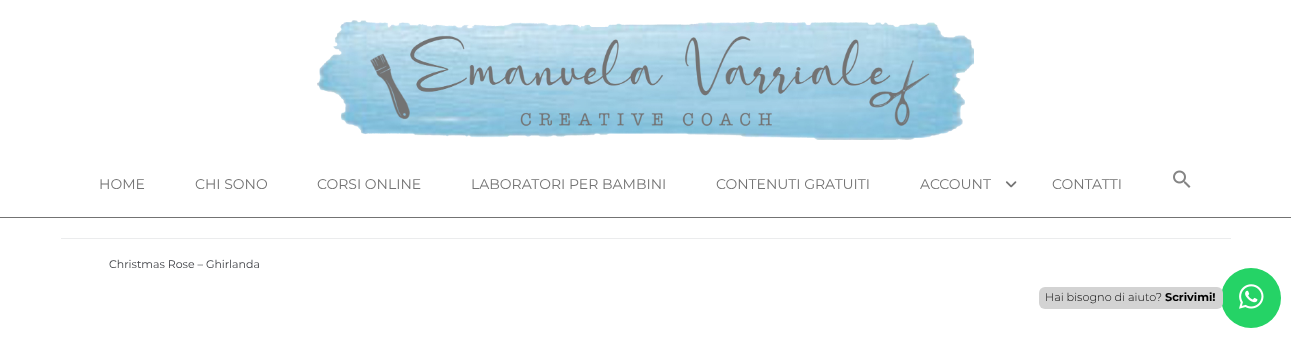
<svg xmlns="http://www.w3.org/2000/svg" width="1291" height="338">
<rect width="100%" height="100%" fill="#fff"/>
<rect y="217" width="1291" height="1" fill="#737373"/>
<image x="317" y="20" width="657" height="120" href="media/1.png"/>
<text x="99" y="189" style="font-family:Montserrat;font-size:14px;fill:#737373">HOME</text>
<text x="195" y="189" style="font-family:Montserrat;font-size:14px;fill:#737373">CHI SONO</text>
<text x="317" y="189" style="font-family:Montserrat;font-size:14px;fill:#737373">CORSI ONLINE</text>
<text x="471" y="189" style="font-family:Montserrat;font-size:14px;fill:#737373">LABORATORI PER BAMBINI</text>
<text x="716" y="189" style="font-family:Montserrat;font-size:14px;fill:#737373">CONTENUTI GRATUITI</text>
<text x="920" y="189" style="font-family:Montserrat;font-size:14px;fill:#737373">ACCOUNT</text>
<image x="1005" y="181" width="12" height="7" href="media/2.png"/>
<text x="1052" y="189" style="font-family:Montserrat;font-size:14px;fill:#737373">CONTATTI</text>
<image x="1173" y="170" width="18" height="18" href="media/3.png"/>
<rect x="61" y="238" width="1170" height="1" fill="#ebeced"/>
<text x="109" y="268" style="font-family:Montserrat;font-size:11px;fill:#3b3d42">Christmas Rose – Ghirlanda</text>
<circle cx="1251" cy="298" r="30" fill="#25d366"/>
<rect x="1039" y="287" width="184" height="22" rx="6" fill="#d3d3d3"/>
<text x="1045" y="301" style="font-family:Montserrat;font-size:11.25px;font-weight:300;fill:#000">Hai bisogno di aiuto?</text>
<text x="1165" y="301" style="font-family:Montserrat;font-size:11.25px;font-weight:bold;fill:#000">Scrivimi!</text>
<image x="1239" y="284" width="25" height="25" href="media/4.png"/>
</svg>
